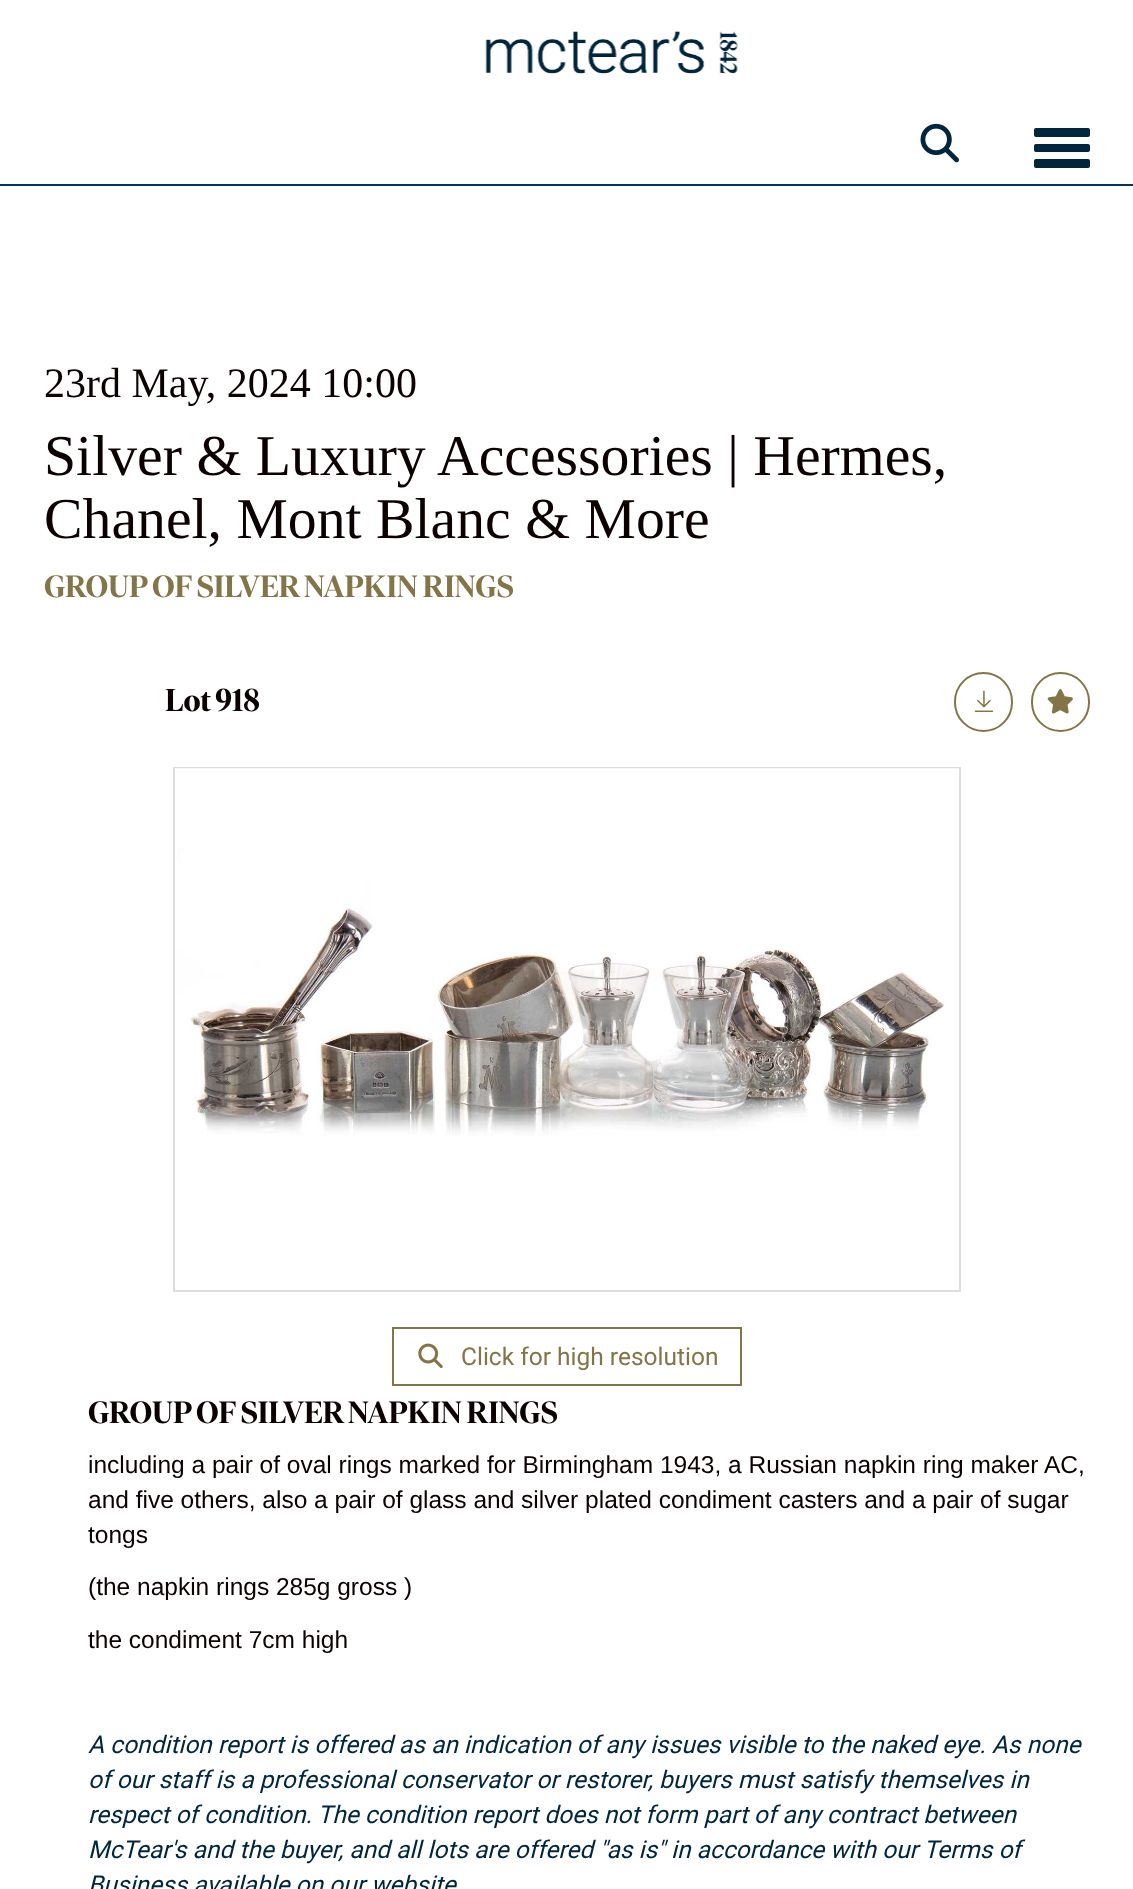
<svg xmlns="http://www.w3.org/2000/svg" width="1133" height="1889">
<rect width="100%" height="100%" fill="#fff"/>
<image x="485" y="31" width="253" height="43" href="media/1.png"/>
<rect y="184" width="1133" height="2" fill="#043457"/>
<image x="920" y="123" width="39" height="40" href="media/2.png"/>
<rect x="1034" y="128" width="56" height="9" rx="2" fill="#00263e"/>
<rect x="1034" y="144" width="56" height="8" rx="2" fill="#00263e"/>
<rect x="1034" y="159" width="56" height="9" rx="2" fill="#00263e"/>
<text x="44" y="397" style="font-family:Liberation Serif;font-size:42px;fill:#0b0101">23rd May, 2024 10:00</text>
<text x="44" y="475" style="font-family:Liberation Serif;font-size:57.75px;fill:#0b0101">Silver &amp; Luxury Accessories | Hermes,</text>
<text x="44" y="538" style="font-family:Liberation Serif;font-size:57.75px;fill:#0b0101">Chanel, Mont Blanc &amp; More</text>
<text x="44" y="597" style="font-family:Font;font-size:30.6px;font-weight:bold;fill:#847548">GROUP OF SILVER NAPKIN RINGS</text>
<text x="165" y="711" style="font-family:Font;font-size:31.5px;font-weight:bold;fill:#0b0101">Lot 918</text>
<rect x="955" y="673" width="57" height="58" rx="28.5" fill="none" stroke="#847548" stroke-width="2"/>
<image x="974" y="690" width="20" height="22" href="media/3.png"/>
<rect x="1032" y="673" width="57" height="58" rx="28.5" fill="none" stroke="#847548" stroke-width="2"/>
<image x="1047" y="689" width="26" height="25" href="media/4.png"/>
<rect x="174" y="768" width="786" height="523" fill="none" stroke="#ddd" stroke-width="2"/>
<image x="175" y="768" width="784" height="368" href="media/5.png"/>
<rect x="393" y="1328" width="348" height="57" fill="none" stroke="#847548" stroke-width="2"/>
<image x="418" y="1343" width="25" height="25" href="media/6.png"/>
<text x="461" y="1365" style="font-family:Roboto;font-size:24.5px;fill:#847548">Click for high resolution</text>
<text x="88" y="1423" style="font-family:Font;font-size:30.6px;font-weight:bold;fill:#0b0101">GROUP OF SILVER NAPKIN RINGS</text>
<text x="88" y="1473" style="font-family:Liberation Sans;font-size:24.5px;fill:#0b0101">including a pair of oval rings marked for Birmingham 1943, a Russian napkin ring maker AC,</text>
<text x="88" y="1508" style="font-family:Liberation Sans;font-size:24.5px;fill:#0b0101">and five others, also a pair of glass and silver plated condiment casters and a pair of sugar</text>
<text x="88" y="1543" style="font-family:Liberation Sans;font-size:24.5px;fill:#0b0101">tongs</text>
<text x="88" y="1595" style="font-family:Liberation Sans;font-size:24.5px;fill:#0b0101">(the napkin rings 285g gross )</text>
<text x="88" y="1648" style="font-family:Liberation Sans;font-size:24.5px;fill:#0b0101">the condiment 7cm high</text>
<text x="88" y="1753" style="font-family:Roboto;font-size:24.5px;font-style:italic;fill:#00263e">A condition report is offered as an indication of any issues visible to the naked eye. As none</text>
<text x="88" y="1788" style="font-family:Roboto;font-size:24.5px;font-style:italic;fill:#00263e">of our staff is a professional conservator or restorer, buyers must satisfy themselves in</text>
<text x="88" y="1823" style="font-family:Roboto;font-size:24.5px;font-style:italic;fill:#00263e">respect of condition. The condition report does not form part of any contract between</text>
<text x="88" y="1858" style="font-family:Roboto;font-size:24.5px;font-style:italic;fill:#00263e">McTear's and the buyer, and all lots are offered "as is" in accordance with our Terms of</text>
<text x="88" y="1893" style="font-family:Roboto;font-size:24.5px;font-style:italic;fill:#00263e">Business available on our website.</text>
</svg>
